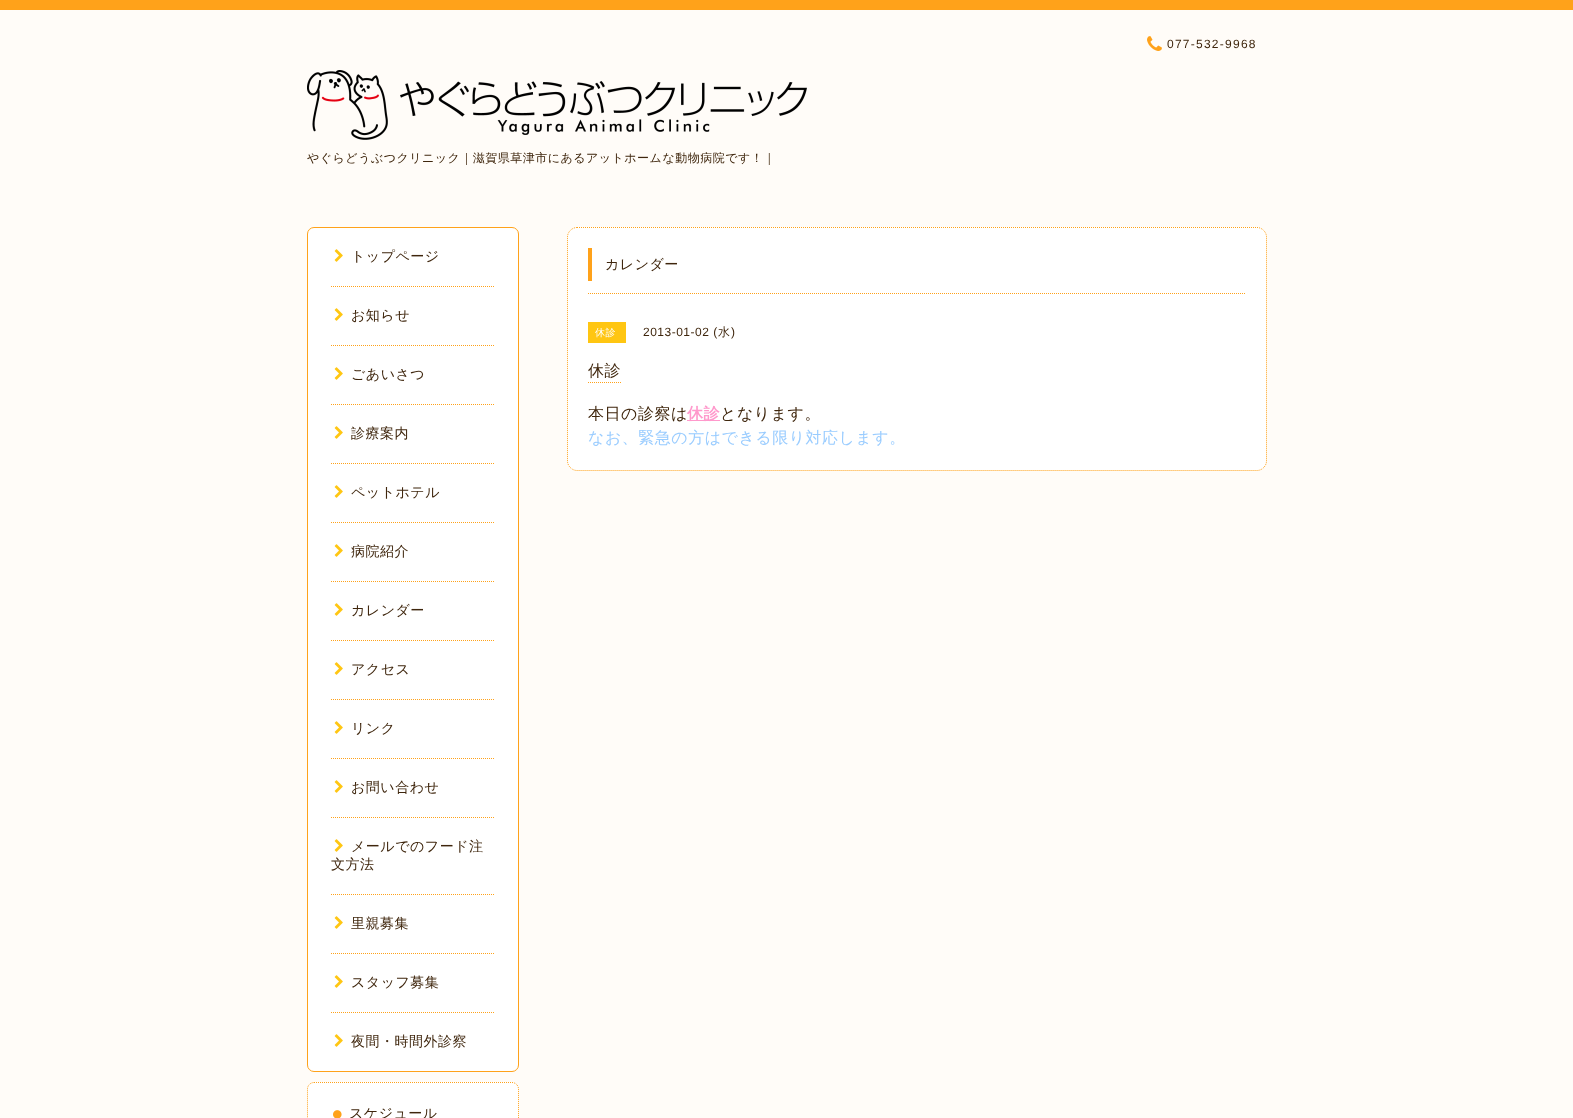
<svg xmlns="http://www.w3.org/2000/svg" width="1573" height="1118">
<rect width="100%" height="100%" fill="#fffcf8"/>
<rect width="1573" height="10" fill="#ffa21a"/>
<image x="1147" y="36" width="15" height="15" href="media/1.png"/>
<text x="1167" y="48" style="font-family:Liberation Sans;font-size:12px;letter-spacing:1.25px;fill:#3f260d">077-532-9968</text>
<image x="307" y="70" width="500" height="70" href="media/2.png"/>
<text x="307" y="162" style="font-family:WenQuanYi Zen Hei;font-size:12px;font-weight:500;letter-spacing:0.5px;fill:#3f260d">やぐらどうぶつクリニック｜滋賀県草津市にあるアットホームな動物病院です！｜</text>
<rect x="307.5" y="227.5" width="211" height="844" rx="6.5" fill="#fff" stroke="#ffa21a"/>
<path d="M331 286.5h164" fill="none" stroke="#ffa21a" stroke-dasharray="1 1"/>
<image x="334" y="249" width="9" height="13" href="media/3.png"/>
<text x="351" y="261" style="font-family:WenQuanYi Zen Hei;font-size:14px;font-weight:500;letter-spacing:0.5px;fill:#3f260d">トップページ</text>
<path d="M331 345.5h164" fill="none" stroke="#ffa21a" stroke-dasharray="1 1"/>
<image x="334" y="308" width="9" height="13" href="media/3.png"/>
<text x="351" y="320" style="font-family:WenQuanYi Zen Hei;font-size:14px;font-weight:500;letter-spacing:0.5px;fill:#3f260d">お知らせ</text>
<path d="M331 404.5h164" fill="none" stroke="#ffa21a" stroke-dasharray="1 1"/>
<image x="334" y="367" width="9" height="13" href="media/3.png"/>
<text x="351" y="379" style="font-family:WenQuanYi Zen Hei;font-size:14px;font-weight:500;letter-spacing:0.5px;fill:#3f260d">ごあいさつ</text>
<path d="M331 463.5h164" fill="none" stroke="#ffa21a" stroke-dasharray="1 1"/>
<image x="334" y="426" width="9" height="13" href="media/3.png"/>
<text x="351" y="438" style="font-family:WenQuanYi Zen Hei;font-size:14px;font-weight:500;letter-spacing:0.5px;fill:#3f260d">診療案内</text>
<path d="M331 522.5h164" fill="none" stroke="#ffa21a" stroke-dasharray="1 1"/>
<image x="334" y="485" width="9" height="13" href="media/3.png"/>
<text x="351" y="497" style="font-family:WenQuanYi Zen Hei;font-size:14px;font-weight:500;letter-spacing:0.5px;fill:#3f260d">ペットホテル</text>
<path d="M331 581.5h164" fill="none" stroke="#ffa21a" stroke-dasharray="1 1"/>
<image x="334" y="544" width="9" height="13" href="media/3.png"/>
<text x="351" y="556" style="font-family:WenQuanYi Zen Hei;font-size:14px;font-weight:500;letter-spacing:0.5px;fill:#3f260d">病院紹介</text>
<path d="M331 640.5h164" fill="none" stroke="#ffa21a" stroke-dasharray="1 1"/>
<image x="334" y="603" width="9" height="13" href="media/3.png"/>
<text x="351" y="615" style="font-family:WenQuanYi Zen Hei;font-size:14px;font-weight:500;letter-spacing:0.5px;fill:#3f260d">カレンダー</text>
<path d="M331 699.5h164" fill="none" stroke="#ffa21a" stroke-dasharray="1 1"/>
<image x="334" y="662" width="9" height="13" href="media/3.png"/>
<text x="351" y="674" style="font-family:WenQuanYi Zen Hei;font-size:14px;font-weight:500;letter-spacing:0.5px;fill:#3f260d">アクセス</text>
<path d="M331 758.5h164" fill="none" stroke="#ffa21a" stroke-dasharray="1 1"/>
<image x="334" y="721" width="9" height="13" href="media/3.png"/>
<text x="351" y="733" style="font-family:WenQuanYi Zen Hei;font-size:14px;font-weight:500;letter-spacing:0.5px;fill:#3f260d">リンク</text>
<path d="M331 817.5h164" fill="none" stroke="#ffa21a" stroke-dasharray="1 1"/>
<image x="334" y="780" width="9" height="13" href="media/3.png"/>
<text x="351" y="792" style="font-family:WenQuanYi Zen Hei;font-size:14px;font-weight:500;letter-spacing:0.5px;fill:#3f260d">お問い合わせ</text>
<path d="M331 894.5h164" fill="none" stroke="#ffa21a" stroke-dasharray="1 1"/>
<image x="334" y="839" width="9" height="13" href="media/3.png"/>
<text x="351" y="851" style="font-family:WenQuanYi Zen Hei;font-size:14px;font-weight:500;letter-spacing:0.5px;fill:#3f260d">メールでのフード注</text>
<text x="331" y="869" style="font-family:WenQuanYi Zen Hei;font-size:14px;font-weight:500;letter-spacing:0.5px;fill:#3f260d">文方法</text>
<path d="M331 953.5h164" fill="none" stroke="#ffa21a" stroke-dasharray="1 1"/>
<image x="334" y="916" width="9" height="13" href="media/3.png"/>
<text x="351" y="928" style="font-family:WenQuanYi Zen Hei;font-size:14px;font-weight:500;letter-spacing:0.5px;fill:#3f260d">里親募集</text>
<path d="M331 1012.5h164" fill="none" stroke="#ffa21a" stroke-dasharray="1 1"/>
<image x="334" y="975" width="9" height="13" href="media/3.png"/>
<text x="351" y="987" style="font-family:WenQuanYi Zen Hei;font-size:14px;font-weight:500;letter-spacing:0.5px;fill:#3f260d">スタッフ募集</text>
<image x="334" y="1034" width="9" height="13" href="media/3.png"/>
<text x="351" y="1046" style="font-family:WenQuanYi Zen Hei;font-size:14px;font-weight:500;letter-spacing:0.5px;fill:#3f260d">夜間・時間外診察</text>
<rect x="307" y="1082" width="212" height="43" rx="7" fill="#fff"/>
<path d="M314 1082.5h198c3.5 0 6.5 3 6.5 6.5v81c0 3.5-3 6.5-6.5 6.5h-198c-3.5 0-6.5-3-6.5-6.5v-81c0-3.5 3-6.5 6.5-6.5z" fill="none" stroke="#ffa21a" stroke-dasharray="1 1"/>
<image x="333" y="1110" width="9" height="8" href="media/4.png"/>
<text x="349" y="1118" style="font-family:WenQuanYi Zen Hei;font-size:14px;font-weight:500;letter-spacing:0.5px;fill:#3f260d">スケジュール</text>
<rect x="567" y="227" width="700" height="244" rx="10" fill="#fff"/>
<path d="M577 227.5h680c5 0 9.5 4.5 9.5 9.5v224c0 5-4.5 9.5-9.5 9.5h-680c-5 0-9.5-4.5-9.5-9.5v-224c0-5 4.5-9.5 9.5-9.5z" fill="none" stroke="#ffa21a" stroke-dasharray="1 1"/>
<rect x="588" y="248" width="4" height="33" fill="#ffa21a"/>
<text x="605" y="269" style="font-family:WenQuanYi Zen Hei;font-size:14px;font-weight:500;letter-spacing:0.5px;fill:#3f260d">カレンダー</text>
<path d="M588 293.5h658" fill="none" stroke="#ffa21a" stroke-dasharray="1 1"/>
<rect x="588" y="322" width="38" height="21" fill="#ffc612"/>
<text x="595" y="336" style="font-family:WenQuanYi Zen Hei;font-size:10px;font-weight:500;letter-spacing:0.5px;fill:#fff">休診</text>
<text x="643" y="336" style="font-family:Liberation Sans;font-size:12px;letter-spacing:0.5px;fill:#3f260d">2013-01-02 (</text>
<text x="718" y="336" style="font-family:WenQuanYi Zen Hei;font-size:12px;font-weight:500;letter-spacing:0.5px;fill:#3f260d">水</text>
<text x="731" y="336" style="font-family:Liberation Sans;font-size:12px;letter-spacing:0.5px;fill:#3f260d">)</text>
<text x="588" y="376" style="font-family:WenQuanYi Zen Hei;font-size:16px;font-weight:500;letter-spacing:0.5px;fill:#3f260d">休診</text>
<path d="M588 382.5h33" fill="none" stroke="#ffa21a" stroke-dasharray="1 1"/>
<text x="588" y="419" style="font-family:WenQuanYi Zen Hei;font-size:16px;font-weight:500;letter-spacing:0.5px;fill:#3f260d">本日の診察は</text>
<rect x="687" y="420" width="33" height="1" fill="#f9c"/>
<text x="687" y="419" style="font-family:WenQuanYi Zen Hei;font-size:16px;font-weight:bold;letter-spacing:0.5px;fill:#f9c">休診</text>
<text x="720" y="419" style="font-family:WenQuanYi Zen Hei;font-size:16px;font-weight:500;letter-spacing:0.5px;fill:#3f260d">となります。</text>
<text x="588" y="443" style="font-family:WenQuanYi Zen Hei;font-size:16px;font-weight:500;letter-spacing:0.5px;fill:#9cf">なお、緊急の方はできる限り対応します。</text>
</svg>
